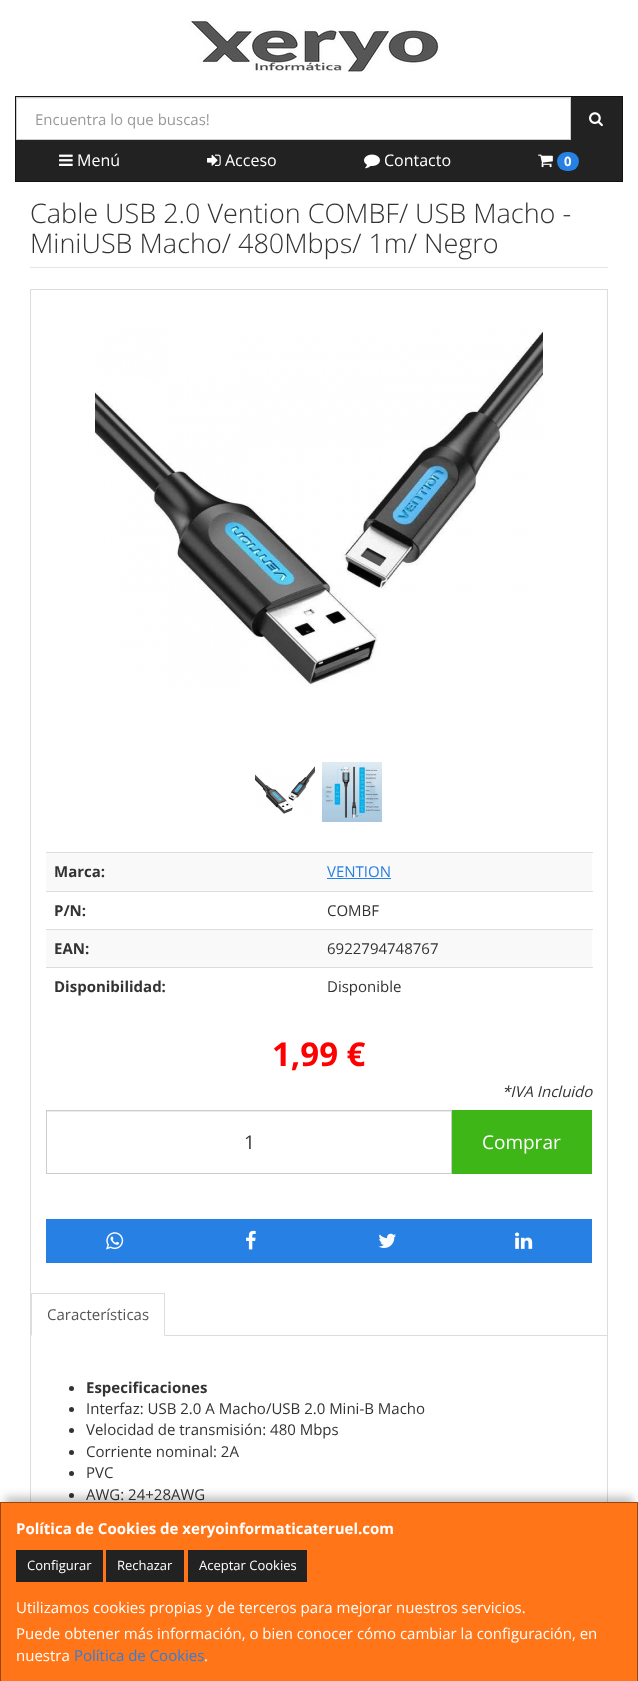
<svg xmlns="http://www.w3.org/2000/svg" width="638" height="1681">
<rect width="100%" height="100%" fill="#fff"/>
<image x="189" y="17" width="251" height="55" href="media/1.png"/>
<rect x="15.5" y="96.5" width="607" height="85" fill="#222" stroke="#121212"/>
<rect x="17" y="99" width="553" height="40" fill="#fff"/>
<rect x="17" y="98" width="553" height="1" fill="#ececec"/>
<rect x="16.5" y="97.5" width="554" height="42" fill="none" stroke="#ccc"/>
<text x="35" y="125" style="font-family:Open Sans;font-size:15px;fill:#999">Encuentra lo que buscas!</text>
<image x="589" y="112" width="14" height="15" href="media/2.png"/>
<image x="59" y="154" width="14" height="12" href="media/3.png"/>
<text x="77" y="166" style="font-family:Open Sans;font-size:16px;fill:#fff">Menú</text>
<image x="207" y="154" width="14" height="12" href="media/4.png"/>
<text x="225" y="166" style="font-family:Open Sans;font-size:16px;fill:#fff">Acceso</text>
<image x="364" y="154" width="16" height="15" href="media/5.png"/>
<text x="384" y="166" style="font-family:Open Sans;font-size:16px;fill:#fff">Contacto</text>
<image x="538" y="154" width="15" height="14" href="media/6.png"/>
<rect x="557" y="152" width="22" height="19" rx="9.5" fill="#2780e3"/>
<text x="564" y="166" style="font-family:Open Sans;font-size:13px;font-weight:bold;fill:#fff">0</text>
<rect x="30" y="267" width="578" height="1" fill="#e6e6e6"/>
<text x="30" y="223" style="font-family:Open Sans;font-size:27px;font-weight:300;fill:#333">Cable USB 2.0 Vention COMBF/ USB Macho -</text>
<text x="30" y="253" style="font-family:Open Sans;font-size:27px;font-weight:300;fill:#333">MiniUSB Macho/ 480Mbps/ 1m/ Negro</text>
<rect x="30.5" y="289.5" width="577" height="1310" fill="none" stroke="#ddd"/>
<image x="95" y="328" width="448" height="359" href="media/7.png"/>
<image x="255" y="766" width="60" height="48" href="media/8.png"/>
<image x="322" y="762" width="60" height="60" href="media/9.png"/>
<rect x="46" y="853" width="546" height="38" fill="#f9f9f9"/>
<text x="54" y="877" style="font-family:Open Sans;font-size:15px;font-weight:bold;fill:#333">Marca:</text>
<rect x="46" y="852" width="547" height="1" fill="#ddd"/>
<text x="327" y="877" style="font-family:Open Sans;font-size:15px;fill:#2780e3">VENTION</text>
<rect x="327" y="878" width="64" height="1" fill="#2780e3"/>
<text x="54" y="916" style="font-family:Open Sans;font-size:15px;font-weight:bold;fill:#333">P/N:</text>
<rect x="46" y="891" width="547" height="1" fill="#ddd"/>
<text x="327" y="916" style="font-family:Open Sans;font-size:15px;fill:#333">COMBF</text>
<rect x="46" y="930" width="546" height="37" fill="#f9f9f9"/>
<text x="54" y="954" style="font-family:Open Sans;font-size:15px;font-weight:bold;fill:#333">EAN:</text>
<rect x="46" y="929" width="547" height="1" fill="#ddd"/>
<text x="327" y="954" style="font-family:Open Sans;font-size:15px;fill:#333">6922794748767</text>
<text x="54" y="992" style="font-family:Open Sans;font-size:15px;font-weight:bold;fill:#333">Disponibilidad:</text>
<rect x="46" y="967" width="547" height="1" fill="#ddd"/>
<text x="327" y="992" style="font-family:Open Sans;font-size:15px;fill:#333">Disponible</text>
<text x="272" y="1066" style="font-family:Open Sans;font-size:33px;font-weight:bold;fill:#f00">1,99 €</text>
<text x="502" y="1097" style="font-family:Open Sans;font-size:15px;font-style:italic;fill:#333">*IVA Incluido</text>
<rect x="47" y="1111" width="404" height="1" fill="#ececec"/>
<rect x="46.5" y="1110.5" width="405" height="63" fill="none" stroke="#ccc"/>
<text x="244" y="1149" style="font-family:Open Sans;font-size:19px;fill:#333">1</text>
<rect x="452" y="1110" width="140" height="64" fill="#3fb618"/>
<text x="482" y="1149" style="font-family:Open Sans;font-size:19px;fill:#fff">Comprar</text>
<rect x="46" y="1219" width="546" height="44" fill="#2780e3"/>
<image x="106" y="1232" width="18" height="18" href="media/10.png"/>
<image x="246" y="1230" width="10" height="20" href="media/11.png"/>
<image x="378" y="1233" width="18" height="15" href="media/12.png"/>
<image x="515" y="1232" width="18" height="17" href="media/13.png"/>
<rect x="165" y="1335" width="442" height="1" fill="#ddd"/>
<rect x="31" y="1293" width="134" height="1" fill="#ddd"/>
<path d="M165 1293v43l-1-1v-41z" fill="#ddd"/>
<path d="M31 1336v-43l1 1v41z" fill="#ddd"/>
<text x="47" y="1320" style="font-family:Open Sans;font-size:15px;fill:#555">Características</text>
<circle cx="71.5" cy="1388.5" r="2.5" fill="#333"/>
<text x="86" y="1393" style="font-family:Open Sans;font-size:15px;font-weight:bold;fill:#333">Especificaciones</text>
<circle cx="71.5" cy="1409.5" r="2.5" fill="#333"/>
<text x="86" y="1414" style="font-family:Open Sans;font-size:15px;fill:#333">Interfaz: USB 2.0 A Macho/USB 2.0 Mini-B Macho</text>
<circle cx="71.5" cy="1430.5" r="2.5" fill="#333"/>
<text x="86" y="1435" style="font-family:Open Sans;font-size:15px;fill:#333">Velocidad de transmisión: 480 Mbps</text>
<circle cx="71.5" cy="1452.5" r="2.5" fill="#333"/>
<text x="86" y="1457" style="font-family:Open Sans;font-size:15px;fill:#333">Corriente nominal: 2A</text>
<circle cx="71.5" cy="1473.5" r="2.5" fill="#333"/>
<text x="86" y="1478" style="font-family:Open Sans;font-size:15px;fill:#333">PVC</text>
<circle cx="71.5" cy="1495.5" r="2.5" fill="#333"/>
<text x="86" y="1500" style="font-family:Open Sans;font-size:15px;fill:#333">AWG: 24+28AWG</text>
<rect x="5" y="1497" width="628" height="169" fill="#00000040" filter="blur(5px)"/>
<rect y="1502" width="638" height="179" fill="#ff7518"/>
<path d="M0 1502h638l-1 1h-636z" fill="#99460e"/>
<path d="M638 1502v179h-1v-178z" fill="#00000066"/>
<path d="M0 1681v-179l1 1v178z" fill="#00000066"/>
<text x="16" y="1534" style="font-family:Open Sans;font-size:15px;font-weight:bold;fill:#fff">Política de Cookies de xeryoinformaticateruel.com</text>
<rect x="16" y="1550" width="87" height="32" fill="#222"/>
<text x="27" y="1570" style="font-family:Open Sans;font-size:13px;fill:#fff">Configurar</text>
<rect x="106" y="1550" width="78" height="32" fill="#222"/>
<text x="117" y="1570" style="font-family:Open Sans;font-size:13px;fill:#fff">Rechazar</text>
<rect x="188" y="1550" width="119" height="32" fill="#222"/>
<text x="199" y="1570" style="font-family:Open Sans;font-size:13px;fill:#fff">Aceptar Cookies</text>
<text x="16" y="1613" style="font-family:Open Sans;font-size:15px;fill:#fff">Utilizamos cookies propias y de terceros para mejorar nuestros servicios.</text>
<text x="16" y="1639" style="font-family:Open Sans;font-size:15px;fill:#fff">Puede obtener más información, o bien conocer cómo cambiar la configuración, en</text>
<text x="16" y="1661" style="font-family:Open Sans;font-size:15px;fill:#fff">nuestra</text>
<text x="74" y="1661" style="font-family:Open Sans;font-size:15px;fill:#2780e3">Política de Cookies</text>
<text x="204" y="1661" style="font-family:Open Sans;font-size:15px;fill:#fff">.</text>
</svg>
